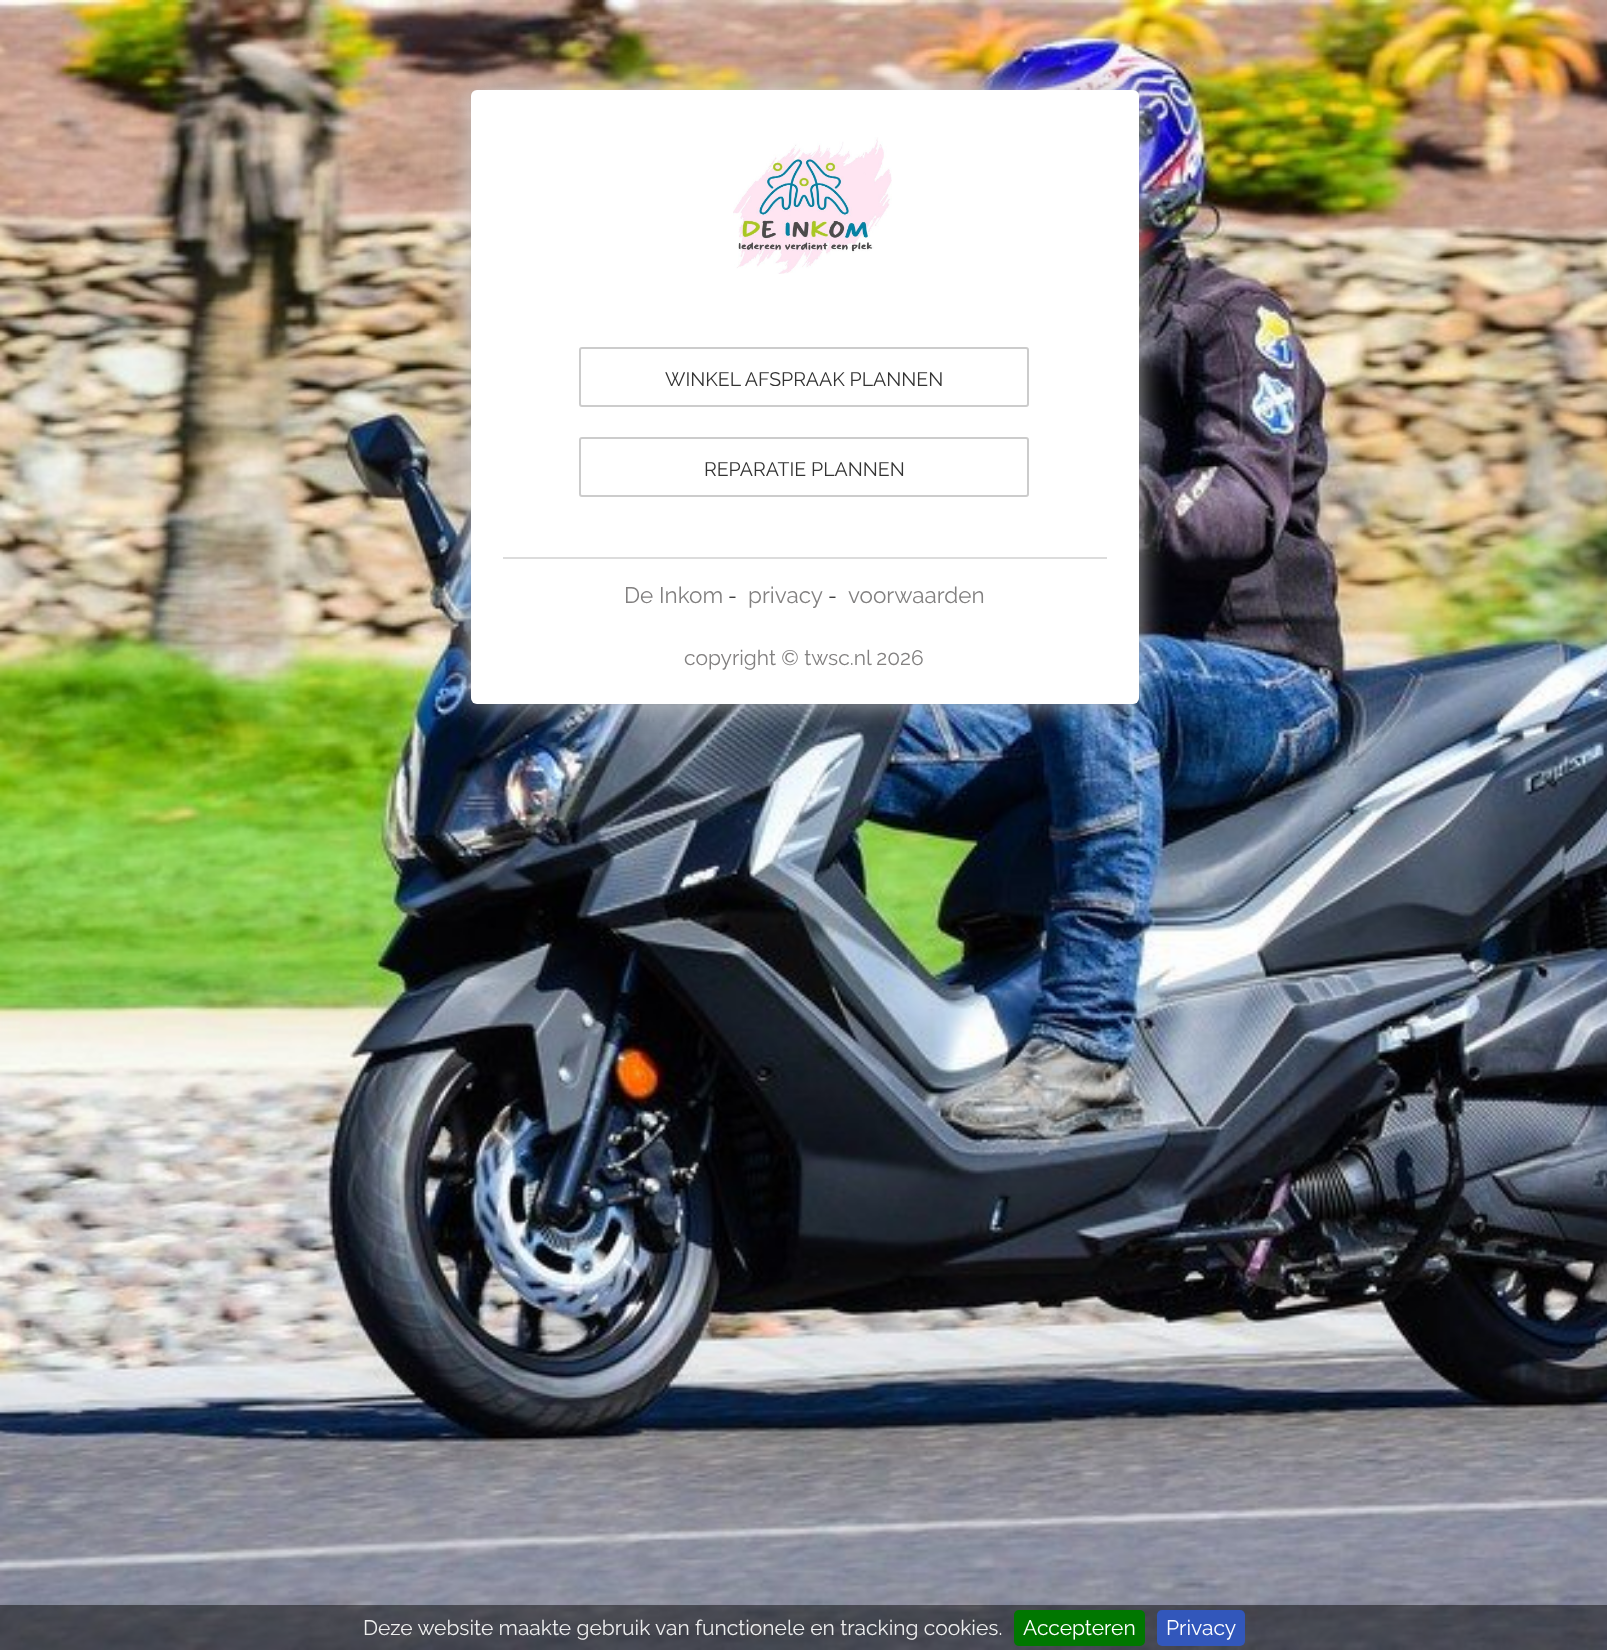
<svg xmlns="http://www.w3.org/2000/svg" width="1607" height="1650">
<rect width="100%" height="100%" fill="#fff"/>
<image x="0" y="0" width="1607" height="1650" href="media/1.png"/>
<rect x="470" y="87" width="667" height="614" rx="8" fill="#ccc" filter="blur(15px)"/>
<rect x="471" y="92" width="668" height="613" rx="6" fill="#0000000d" filter="blur(1px)"/>
<rect x="471" y="90" width="668" height="614" rx="6" fill="#fff"/>
<image x="733" y="137" width="159" height="137" href="media/2.png"/>
<rect x="580" y="348" width="448" height="58" rx="2" fill="none" stroke="#ccc" stroke-width="2"/>
<text x="665" y="386" style="font-family:Raleway;font-size:19.5px;font-weight:100;fill:#333">WINKEL AFSPRAAK PLANNEN</text>
<rect x="580" y="438" width="448" height="58" rx="2" fill="none" stroke="#ccc" stroke-width="2"/>
<text x="704" y="476" style="font-family:Raleway;font-size:19.5px;font-weight:100;fill:#333">REPARATIE PLANNEN</text>
<rect x="503" y="557" width="604" height="2" fill="#dcdcdc"/>
<text x="624" y="603" style="font-family:Raleway;font-size:22.5px;font-weight:100;fill:#828080">De Inkom</text>
<text x="728" y="603" style="font-family:Raleway;font-size:21px;font-weight:100;fill:#333">-</text>
<text x="748" y="603" style="font-family:Raleway;font-size:22.5px;font-weight:100;fill:#828080">privacy</text>
<text x="828" y="603" style="font-family:Raleway;font-size:21px;font-weight:100;fill:#333">-</text>
<text x="848" y="603" style="font-family:Raleway;font-size:22.5px;font-weight:100;fill:#828080">voorwaarden</text>
<text x="684" y="665" style="font-family:Raleway;font-size:21px;font-weight:100;fill:#828080">copyright © twsc.nl 2026</text>
<rect y="1605" width="1607" height="45" fill="#0000007a"/>
<text x="363" y="1635" style="font-family:Raleway;font-size:21px;font-weight:100;fill:#eee">Deze website maakte gebruik van functionele en tracking cookies.</text>
<rect x="1014" y="1610" width="131" height="36" rx="5" fill="#070"/>
<text x="1023" y="1635" style="font-family:Raleway;font-size:21px;font-weight:100;fill:#fff">Accepteren</text>
<rect x="1157" y="1610" width="88" height="36" rx="5" fill="#3257bb"/>
<text x="1166" y="1635" style="font-family:Raleway;font-size:21px;font-weight:100;fill:#fff">Privacy</text>
</svg>
